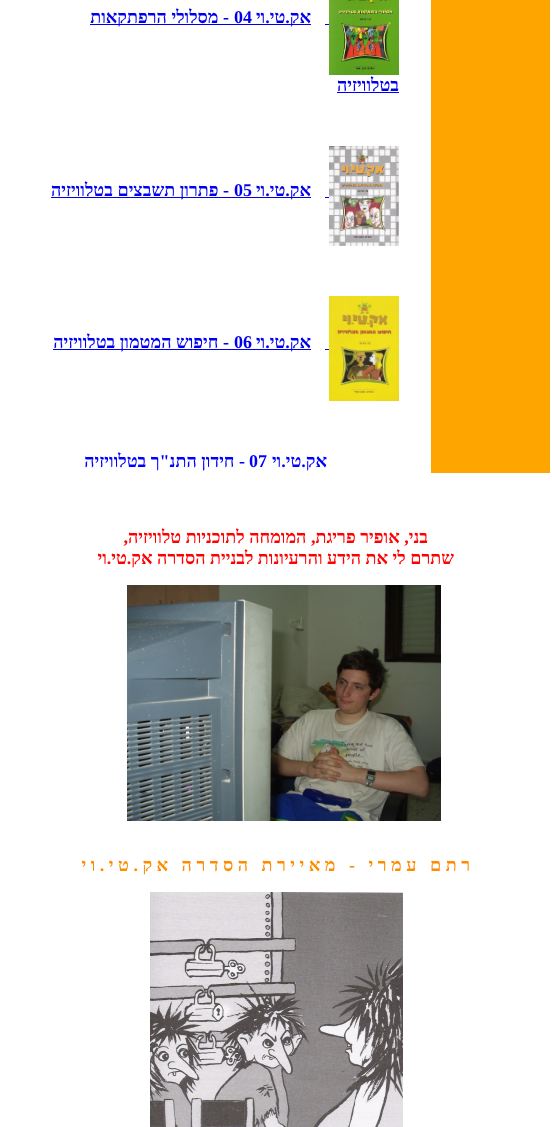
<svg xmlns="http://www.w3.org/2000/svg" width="552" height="1127">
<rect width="100%" height="100%" fill="#fff"/>
<rect x="431" width="119" height="473" fill="#ffa500"/>
<image x="329" y="0" width="70" height="75" href="media/1.png"/>
<rect x="325" y="24" width="4" height="1" fill="#00e"/>
<rect x="90" y="24" width="221" height="1" fill="#00e"/>
<text x="311" y="23" style="font-family:Liberation Serif;font-size:18px;font-weight:bold;direction:rtl;fill:#00e">אק.טי.וי</text>
<text x="234" y="23" style="font-family:Liberation Serif;font-size:18px;font-weight:bold;fill:#00e">04</text>
<text x="229" y="23" style="font-family:Liberation Serif;font-size:18px;font-weight:bold;direction:rtl;fill:#00e">- מסלולי הרפתקאות</text>
<text x="399" y="91" style="font-family:Liberation Serif;font-size:18px;font-weight:bold;direction:rtl;fill:#00e">בטלוויזיה</text>
<rect x="337" y="92" width="62" height="1" fill="#00e"/>
<image x="329" y="146" width="70" height="100" href="media/2.png"/>
<rect x="325" y="197" width="4" height="1" fill="#00e"/>
<rect x="51" y="197" width="260" height="1" fill="#00e"/>
<text x="311" y="196" style="font-family:Liberation Serif;font-size:18px;font-weight:bold;direction:rtl;fill:#00e">אק.טי.וי</text>
<text x="234" y="196" style="font-family:Liberation Serif;font-size:18px;font-weight:bold;fill:#00e">05</text>
<text x="229" y="196" style="font-family:Liberation Serif;font-size:18px;font-weight:bold;direction:rtl;fill:#00e">- פתרון תשבצים בטלוויזיה</text>
<image x="329" y="296" width="70" height="105" href="media/3.png"/>
<rect x="325" y="349" width="4" height="1" fill="#00e"/>
<rect x="53" y="349" width="258" height="1" fill="#00e"/>
<text x="311" y="348" style="font-family:Liberation Serif;font-size:18px;font-weight:bold;direction:rtl;fill:#00e">אק.טי.וי</text>
<text x="234" y="348" style="font-family:Liberation Serif;font-size:18px;font-weight:bold;fill:#00e">06</text>
<text x="229" y="348" style="font-family:Liberation Serif;font-size:18px;font-weight:bold;direction:rtl;fill:#00e">- חיפוש המטמון בטלוויזיה</text>
<text x="327" y="467" style="font-family:Liberation Serif;font-size:18px;font-weight:bold;direction:rtl;fill:#00f">אק.טי.וי</text>
<text x="249" y="467" style="font-family:Liberation Serif;font-size:18px;font-weight:bold;fill:#00f">07</text>
<text x="245" y="467" style="font-family:Liberation Serif;font-size:18px;font-weight:bold;direction:rtl;fill:#00f">- חידון התנ"ך בטלוויזיה</text>
<text x="428" y="543" style="font-family:Liberation Serif;font-size:18px;font-weight:bold;direction:rtl;fill:#f00">בני, אופיר פריגת, המומחה לתוכניות טלוויזיה,</text>
<text x="454" y="564" style="font-family:Liberation Serif;font-size:18px;font-weight:bold;direction:rtl;fill:#f00">שתרם לי את הידע והרעיונות לבניית הסדרה אק.טי.וי</text>
<image x="127" y="585" width="314" height="236" href="media/4.png"/>
<text x="470" y="871" style="font-family:Liberation Serif;font-size:18px;font-weight:bold;direction:rtl;fill:#ff8c00" xml:space="preserve">ר ת ם   ע מ ר י   -   מ א י י ר ת   ה ס ד ר ה   א ק . ט י . ו י</text>
<image x="150" y="892" width="253" height="235" href="media/5.png"/>
</svg>
